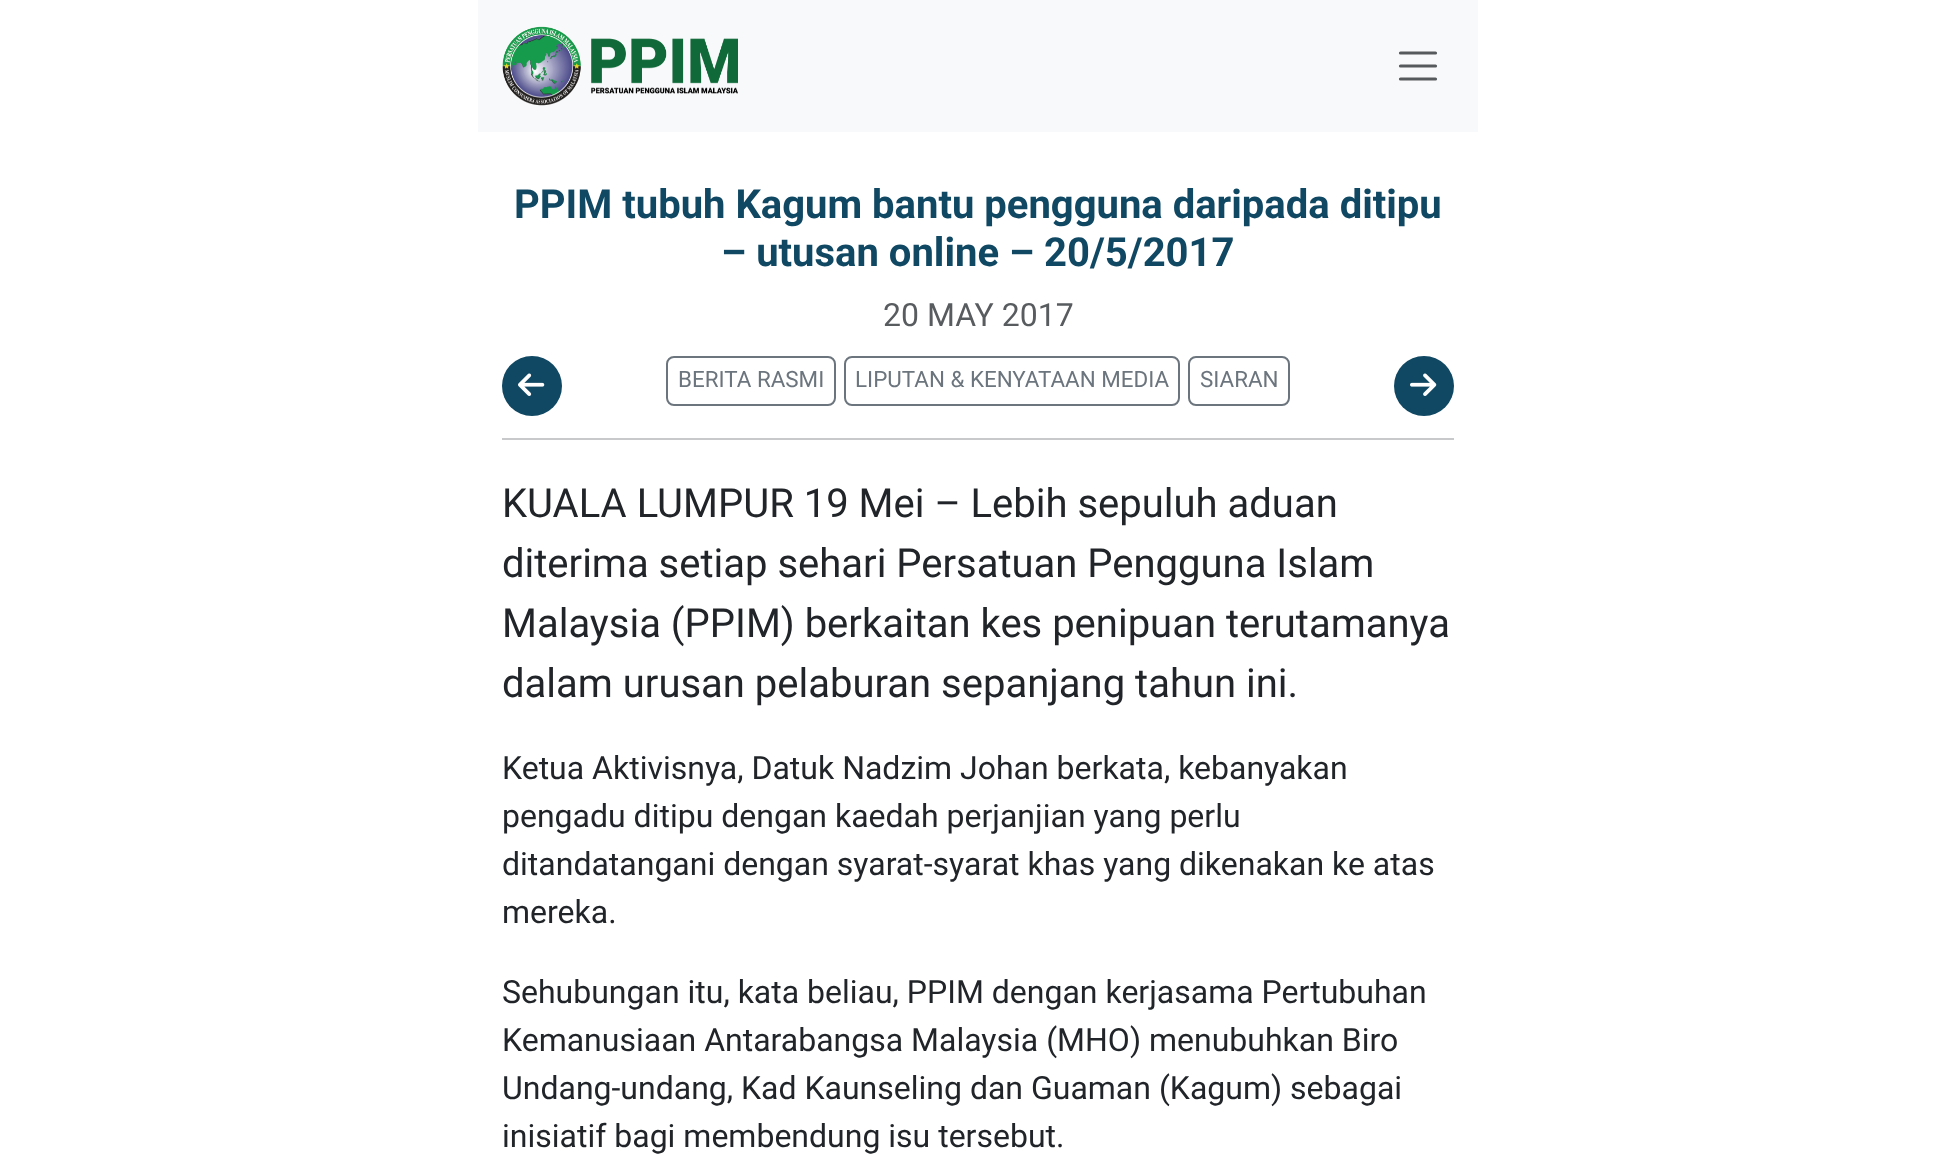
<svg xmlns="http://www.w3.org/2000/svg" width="1955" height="1174">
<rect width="100%" height="100%" fill="#fff"/>
<rect x="478" width="1000" height="132" fill="#f8f9fa"/>
<image x="502" y="26" width="236" height="80" href="media/1.png"/>
<path d="M1400.5 53h35m-35 13h35m-35 13h35" fill="none" stroke="#575a5d" stroke-width="3.2" stroke-linecap="round"/>
<text x="514" y="218" style="font-family:Roboto;font-size:40px;font-weight:bold;fill:#104863">PPIM tubuh Kagum bantu pengguna daripada ditipu</text>
<text x="721" y="266" style="font-family:Roboto;font-size:40px;font-weight:bold;fill:#104863">– utusan online – 20/5/2017</text>
<text x="883" y="326" style="font-family:Roboto;font-size:32px;fill:#595c5f">20 MAY 2017</text>
<circle cx="532" cy="386" r="30" fill="#104863"/>
<image x="518" y="373" width="27" height="23" href="media/2.png"/>
<circle cx="1424" cy="386" r="30" fill="#104863"/>
<image x="1410" y="373" width="27" height="23" href="media/3.png"/>
<rect x="667" y="357" width="168" height="48" rx="7" fill="none" stroke="#6c757d" stroke-width="2"/>
<text x="678" y="387" style="font-family:Roboto;font-size:22.4px;fill:#6c757d">BERITA RASMI</text>
<rect x="845" y="357" width="334" height="48" rx="7" fill="none" stroke="#6c757d" stroke-width="2"/>
<text x="855" y="387" style="font-family:Roboto;font-size:22.4px;fill:#6c757d">LIPUTAN &amp; KENYATAAN MEDIA</text>
<rect x="1189" y="357" width="100" height="48" rx="7" fill="none" stroke="#6c757d" stroke-width="2"/>
<text x="1200" y="387" style="font-family:Roboto;font-size:22.4px;fill:#6c757d">SIARAN</text>
<rect x="502" y="438" width="952" height="2" fill="#c8c9ca"/>
<text x="502" y="517" style="font-family:Roboto;font-size:40px;fill:#212529">KUALA LUMPUR 19 Mei – Lebih sepuluh aduan</text>
<text x="502" y="577" style="font-family:Roboto;font-size:40px;fill:#212529">diterima setiap sehari Persatuan Pengguna Islam</text>
<text x="502" y="637" style="font-family:Roboto;font-size:40px;fill:#212529">Malaysia (PPIM) berkaitan kes penipuan terutamanya</text>
<text x="502" y="697" style="font-family:Roboto;font-size:40px;fill:#212529">dalam urusan pelaburan sepanjang tahun ini.</text>
<text x="502" y="779" style="font-family:Roboto;font-size:32px;fill:#212529">Ketua Aktivisnya, Datuk Nadzim Johan berkata, kebanyakan</text>
<text x="502" y="827" style="font-family:Roboto;font-size:32px;fill:#212529">pengadu ditipu dengan kaedah perjanjian yang perlu</text>
<text x="502" y="875" style="font-family:Roboto;font-size:32px;fill:#212529">ditandatangani dengan syarat-syarat khas yang dikenakan ke atas</text>
<text x="502" y="923" style="font-family:Roboto;font-size:32px;fill:#212529">mereka.</text>
<text x="502" y="1003" style="font-family:Roboto;font-size:32px;fill:#212529">Sehubungan itu, kata beliau, PPIM dengan kerjasama Pertubuhan</text>
<text x="502" y="1051" style="font-family:Roboto;font-size:32px;fill:#212529">Kemanusiaan Antarabangsa Malaysia (MHO) menubuhkan Biro</text>
<text x="502" y="1099" style="font-family:Roboto;font-size:32px;fill:#212529">Undang-undang, Kad Kaunseling dan Guaman (Kagum) sebagai</text>
<text x="502" y="1147" style="font-family:Roboto;font-size:32px;fill:#212529">inisiatif bagi membendung isu tersebut.</text>
</svg>
